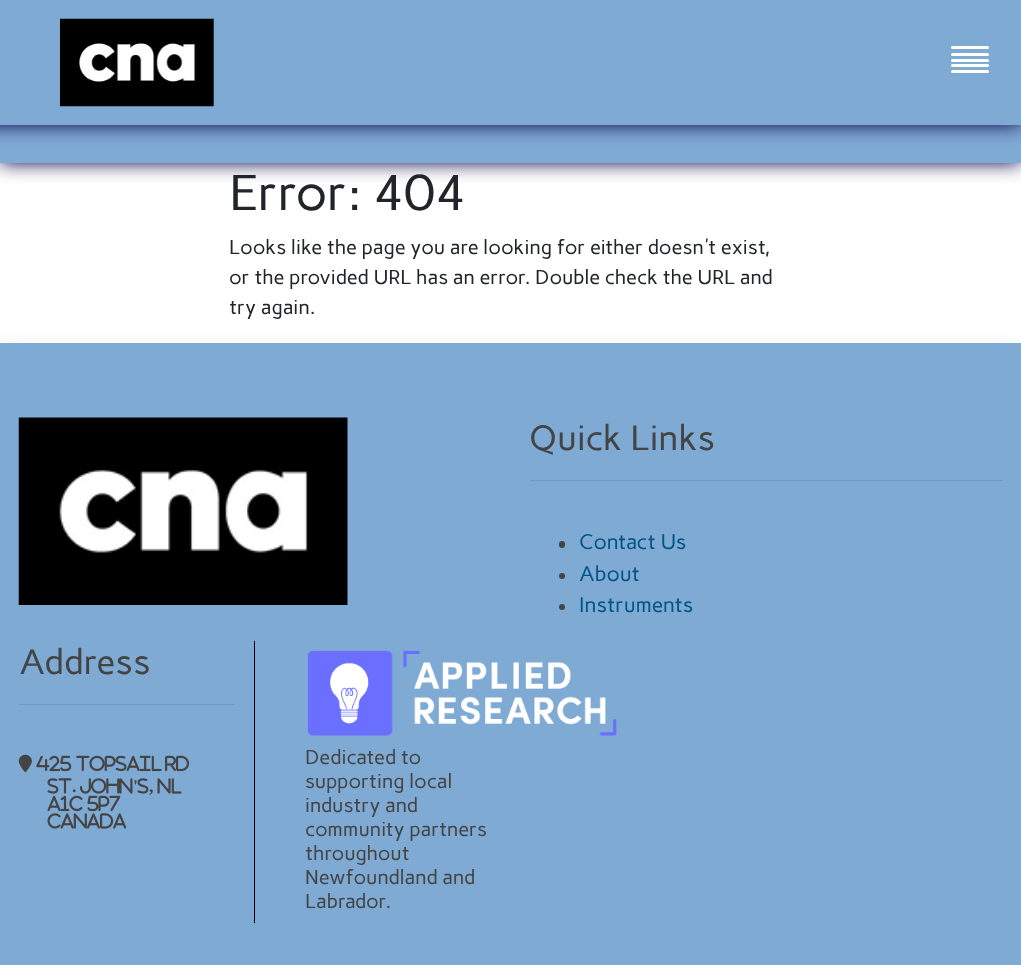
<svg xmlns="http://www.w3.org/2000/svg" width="1021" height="965">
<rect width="100%" height="100%" fill="#fff"/>
<rect y="125" width="1021" height="38" fill="#070047" filter="blur(9.5px)"/>
<rect y="125" width="1021" height="38" fill="#7faad4"/>
<rect x="-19" width="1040" height="125" fill="#070047" filter="blur(9.5px)"/>
<rect width="1021" height="125" fill="#7faad4"/>
<image x="60" y="18" width="154" height="89" href="media/1.png"/>
<rect x="951" y="46" width="38" height="3" rx="1.5" fill="#fff"/>
<rect x="951" y="53" width="38" height="3" rx="1.5" fill="#fff"/>
<rect x="951" y="59" width="38" height="3" rx="1.5" fill="#fff"/>
<rect x="951" y="64" width="38" height="3" rx="1.5" fill="#fff"/>
<rect x="951" y="70" width="38" height="3" rx="1.5" fill="#fff"/>
<text x="229" y="210" style="font-family:Carme;font-size:50px;fill:#212529">Error: 404</text>
<text x="229" y="254" style="font-family:Carme;font-size:20px;fill:#212529">Looks like the page you are looking for either doesn't exist,</text>
<text x="229" y="284" style="font-family:Carme;font-size:20px;fill:#212529">or the provided URL has an error. Double check the URL and</text>
<rect y="345" width="1021" height="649" fill="#12426514" filter="blur(9.5px)"/>
<text x="229" y="314" style="font-family:Carme;font-size:20px;fill:#212529">try again.</text>
<rect y="343" width="1021" height="622" fill="#7faad4"/>
<image x="18" y="417" width="330" height="188" href="media/2.png"/>
<text x="529" y="450" style="font-family:Carme;font-size:35px;fill:#444">Quick Links</text>
<rect x="530" y="480" width="473" height="1" fill="#7299bf"/>
<rect x="559" y="541" width="6" height="7" rx="3" fill="#444"/>
<text x="579" y="549" style="font-family:Carme;font-size:21px;fill:#005586">Contact Us</text>
<circle cx="562" cy="576" r="3" fill="#444"/>
<text x="579" y="581" style="font-family:Carme;font-size:21px;fill:#005586">About</text>
<circle cx="562" cy="607" r="3" fill="#444"/>
<text x="579" y="612" style="font-family:Carme;font-size:21px;fill:#005586">Instruments</text>
<rect x="254" y="641" width="1" height="282" fill="#000"/>
<text x="19" y="674" style="font-family:Carme;font-size:35px;fill:#444">Address</text>
<rect x="19" y="704" width="216" height="1" fill="#7299bf"/>
<image x="18" y="754" width="14" height="19" href="media/3.png"/>
<image x="36" y="755" width="36" height="17" href="media/4.png"/>
<image x="76" y="755" width="86" height="17" href="media/5.png"/>
<image x="165" y="755" width="24" height="17" href="media/6.png"/>
<image x="47" y="778" width="25" height="16" href="media/7.png"/>
<image x="80" y="778" width="53" height="16" href="media/8.png"/>
<text x="133" y="792" style="font-family:Liberation Serif;font-size:18px;font-weight:bold;fill:#444">'</text>
<image x="137" y="778" width="12" height="16" href="media/9.png"/>
<image x="157" y="778" width="25" height="16" href="media/10.png"/>
<text x="72" y="792" style="font-family:Liberation Serif;font-size:18px;font-weight:bold;fill:#444">.</text>
<text x="149" y="792" style="font-family:Liberation Serif;font-size:18px;font-weight:bold;fill:#444">,</text>
<image x="47" y="795" width="36" height="17" href="media/11.png"/>
<image x="87" y="795" width="34" height="17" href="media/12.png"/>
<image x="47" y="813" width="80" height="16" href="media/13.png"/>
<image x="307" y="650" width="310" height="86" href="media/14.png"/>
<text x="305" y="764" style="font-family:Carme;font-size:20px;fill:#444">Dedicated to</text>
<text x="305" y="788" style="font-family:Carme;font-size:20px;fill:#444">supporting local</text>
<text x="305" y="812" style="font-family:Carme;font-size:20px;fill:#444">industry and</text>
<text x="305" y="836" style="font-family:Carme;font-size:20px;fill:#444">community partners</text>
<text x="305" y="860" style="font-family:Carme;font-size:20px;fill:#444">throughout</text>
<text x="305" y="884" style="font-family:Carme;font-size:20px;fill:#444">Newfoundland and</text>
<text x="305" y="908" style="font-family:Carme;font-size:20px;fill:#444">Labrador.</text>
</svg>
